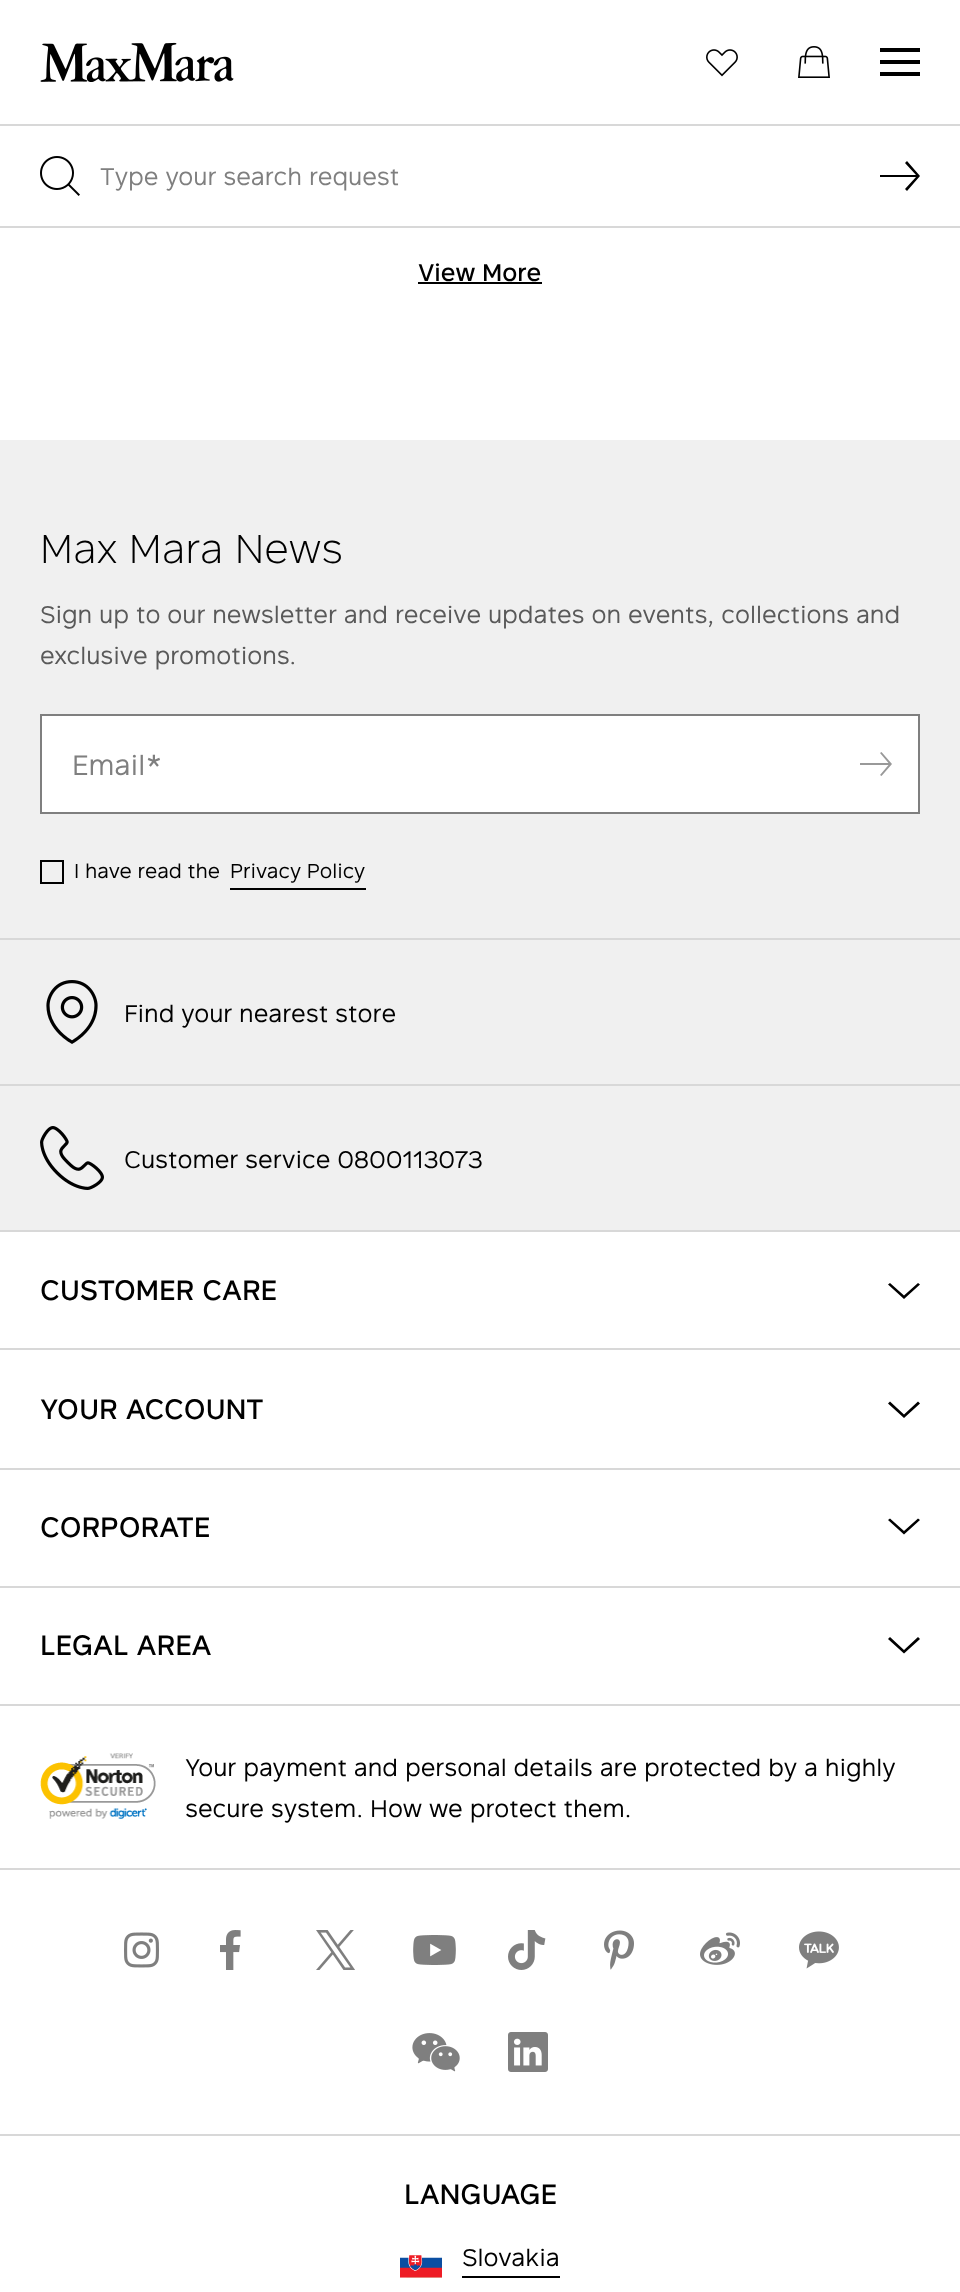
<svg xmlns="http://www.w3.org/2000/svg" width="960" height="2292">
<rect width="100%" height="100%" fill="#fff"/>
<image x="40" y="42" width="194" height="40" href="media/1.png"/>
<image x="706" y="49" width="32" height="28" href="media/2.png"/>
<image x="798" y="46" width="32" height="32" href="media/3.png"/>
<rect x="880" y="48" width="40" height="4" fill="#000"/>
<rect x="880" y="60" width="40" height="4" fill="#000"/>
<rect x="880" y="72" width="40" height="4" fill="#000"/>
<rect y="124" width="960" height="2" fill="#d8d8d8"/>
<rect y="226" width="960" height="2" fill="#d8d8d8"/>
<image x="40" y="156" width="40" height="40" href="media/4.png"/>
<text x="100" y="185" style="font-family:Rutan;font-size:24px;fill:#7f7f7f">Type your search request</text>
<path d="M907 161l-2 2l11 12h-36v2h36l-11 12l2 2l13-15z" fill="#000"/>
<text x="418" y="281" style="font-family:Rutan;font-size:24px;font-weight:500;fill:#000">View More</text>
<rect x="418" y="282" width="124" height="2" fill="#000"/>
<rect y="440" width="960" height="498" fill="#f0f0f0"/>
<rect y="938" width="960" height="2" fill="#d8d8d8"/>
<text x="40" y="563" style="font-family:Rutan;font-size:40px;font-weight:300;fill:#000">Max Mara News</text>
<text x="40" y="623" style="font-family:Rutan;font-size:24px;fill:#595959">Sign up to our newsletter and receive updates on events, collections and</text>
<text x="40" y="664" style="font-family:Rutan;font-size:24px;fill:#595959">exclusive promotions.</text>
<rect x="41" y="715" width="878" height="98" fill="#fff" stroke="#7f7f7f" stroke-width="2"/>
<text x="72" y="775" style="font-family:Rutan;font-size:28px;fill:#7f7f7f">Email*</text>
<path d="M881.5 752l-1.5 1l8.5 10h-28.5v2h28.5l-8.5 10l1.5 1l10.5-12z" fill="#999"/>
<rect x="41" y="861" width="22" height="22" fill="none" stroke="#000" stroke-width="2"/>
<text x="74" y="878" style="font-family:Rutan;font-size:20px;fill:#000">I have read the</text>
<text x="230" y="878" style="font-family:Rutan;font-size:20px;fill:#000">Privacy Policy</text>
<rect x="230" y="888" width="136" height="2" fill="#000"/>
<rect y="940" width="960" height="290" fill="#f0f0f0"/>
<rect y="1084" width="960" height="2" fill="#d8d8d8"/>
<image x="46" y="980" width="52" height="64" href="media/5.png"/>
<text x="124" y="1022" style="font-family:Rutan;font-size:24px;fill:#000">Find your nearest store</text>
<rect y="1230" width="960" height="2" fill="#d8d8d8"/>
<image x="40" y="1126" width="64" height="64" href="media/6.png"/>
<text x="124" y="1168" style="font-family:Rutan;font-size:24px;fill:#000">Customer service 0800113073</text>
<rect y="1348" width="960" height="2" fill="#d8d8d8"/>
<text x="40" y="1300" style="font-family:Rutan;font-size:28px;font-weight:500;fill:#000">CUSTOMER CARE</text>
<path d="M920 1284.5l-2-1.5l-14 12.5l-14-12.5l-2 1.5l16 14.5z" fill="#000"/>
<rect y="1468" width="960" height="2" fill="#d8d8d8"/>
<text x="40" y="1419" style="font-family:Rutan;font-size:28px;font-weight:500;fill:#000">YOUR ACCOUNT</text>
<path d="M920 1403.5l-2-2l-14 13l-14-13l-2 2l16 14.5z" fill="#000"/>
<rect y="1586" width="960" height="2" fill="#d8d8d8"/>
<text x="40" y="1537" style="font-family:Rutan;font-size:28px;font-weight:500;fill:#000">CORPORATE</text>
<path d="M920 1520l-2-1.5l-14 12.5l-14-12.5l-2 1.5l16 14.5z" fill="#000"/>
<rect y="1704" width="960" height="2" fill="#d8d8d8"/>
<text x="40" y="1655" style="font-family:Rutan;font-size:28px;font-weight:500;fill:#000">LEGAL AREA</text>
<path d="M920 1639l-2-2l-14 13l-14-13l-2 2l16 14.5z" fill="#000"/>
<rect y="1868" width="960" height="2" fill="#d8d8d8"/>
<image x="40" y="1753" width="116" height="66" href="media/7.png"/>
<text x="185" y="1776" style="font-family:Rutan;font-size:24px;fill:#000">Your payment and personal details are protected by a highly</text>
<text x="185" y="1817" style="font-family:Rutan;font-size:24px;fill:#000">secure system. How we protect them.</text>
<rect y="2134" width="960" height="2" fill="#d8d8d8"/>
<image x="124" y="1932" width="35" height="36" href="media/8.png"/>
<image x="220" y="1930" width="21" height="40" href="media/9.png"/>
<image x="316" y="1930" width="39" height="40" href="media/10.png"/>
<image x="413" y="1935" width="43" height="30" href="media/11.png"/>
<image x="508" y="1930" width="38" height="40" href="media/12.png"/>
<image x="604" y="1930" width="30" height="40" href="media/13.png"/>
<image x="700" y="1932" width="40" height="33" href="media/14.png"/>
<image x="799" y="1931" width="40" height="38" href="media/15.png"/>
<image x="412" y="2033" width="48" height="39" href="media/16.png"/>
<image x="508" y="2032" width="40" height="40" href="media/17.png"/>
<text x="404" y="2204" style="font-family:Rutan;font-size:28px;font-weight:500;fill:#000">LANGUAGE</text>
<image x="400" y="2255" width="42" height="23" href="media/18.png"/>
<text x="462" y="2266" style="font-family:Rutan;font-size:24px;fill:#000">Slovakia</text>
<rect x="462" y="2276" width="98" height="2" fill="#000"/>
</svg>
